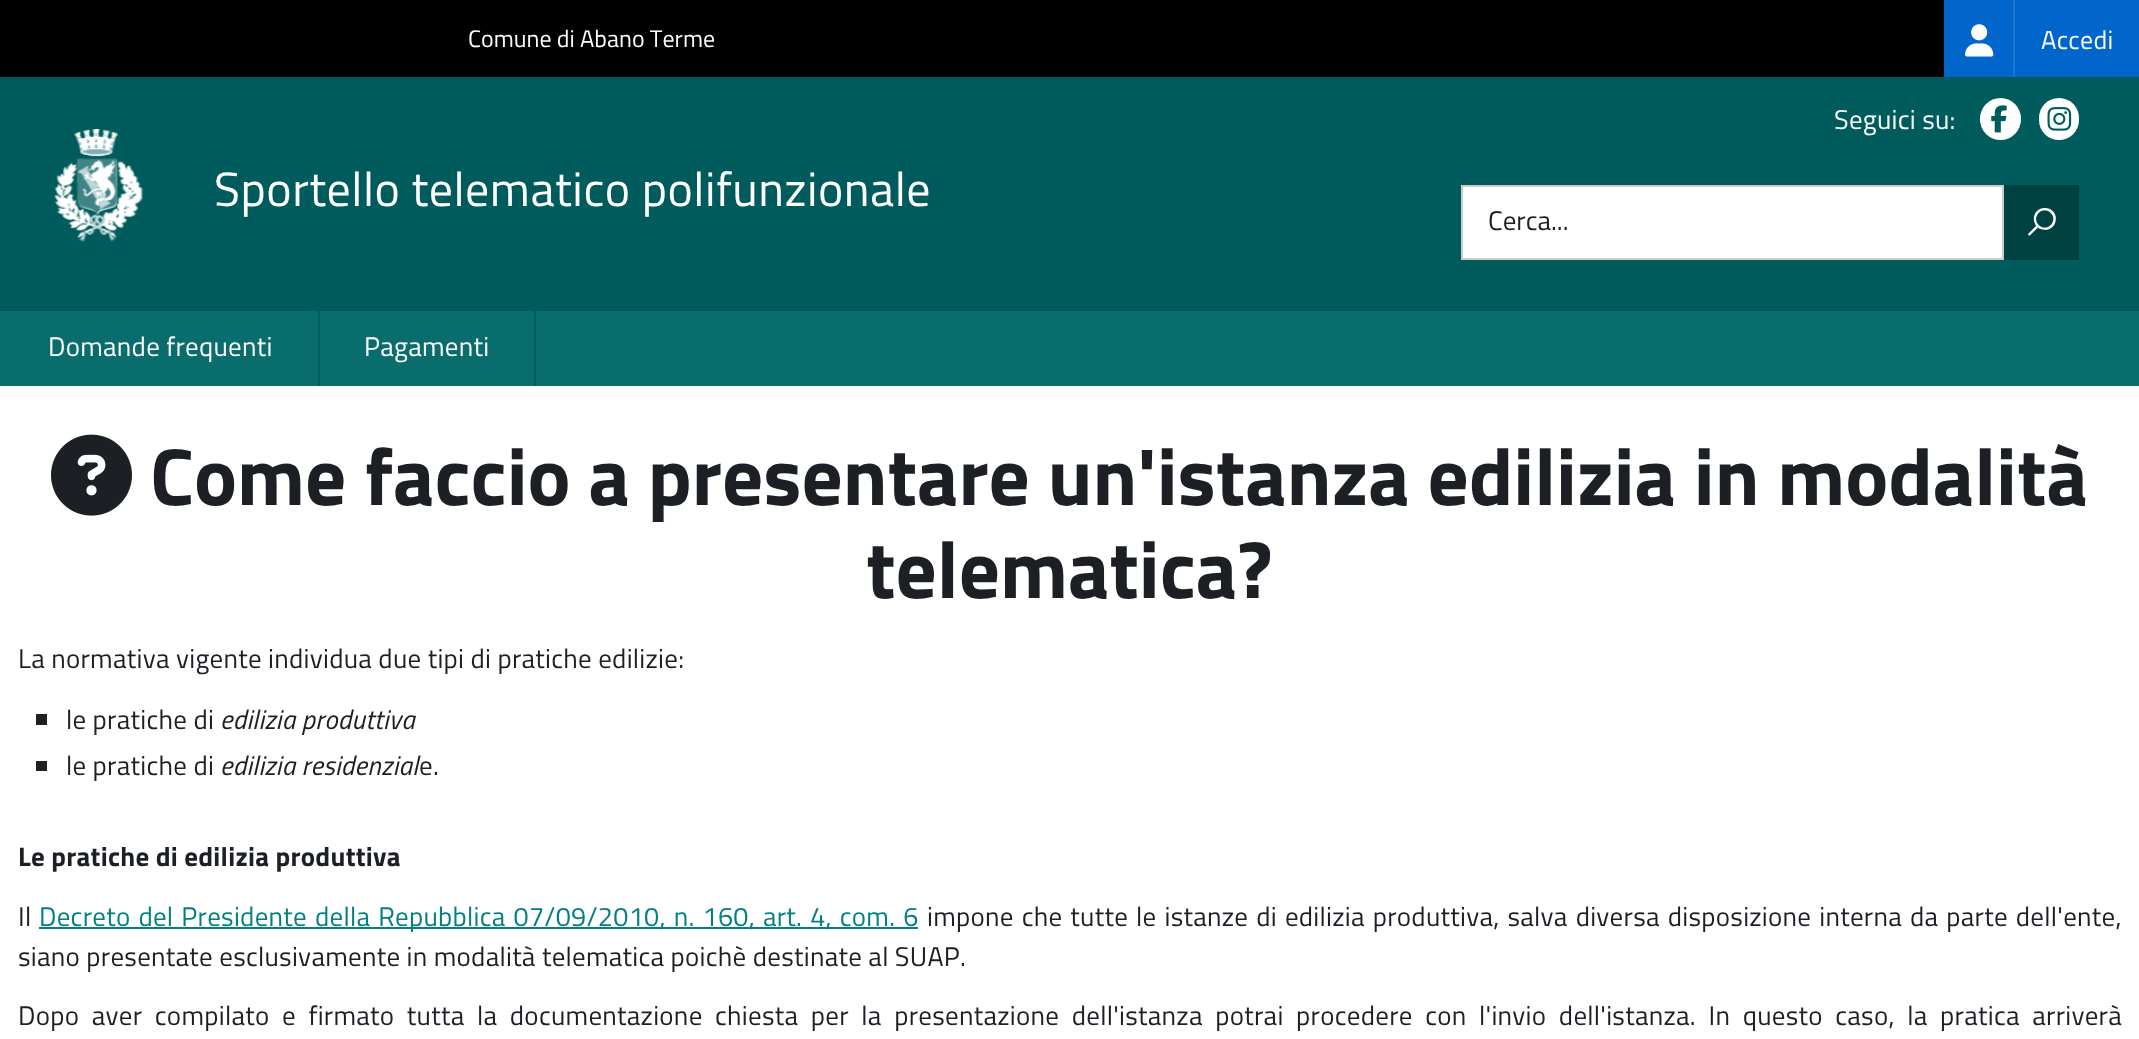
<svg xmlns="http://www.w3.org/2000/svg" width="2139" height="1039">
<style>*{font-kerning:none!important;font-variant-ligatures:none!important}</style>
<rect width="100%" height="100%" fill="#fff"/>
<rect width="1944" height="77" fill="#000"/>
<text x="468" y="47" style="font-family:Titillium Web;font-size:24px;fill:#fff">Comune di Abano Terme</text>
<rect x="1944" width="69" height="77" fill="#06c"/>
<rect x="2013" width="2" height="77" fill="#1a75d1"/>
<image x="1965" y="24" width="29" height="33" href="media/1.png"/>
<rect x="2015" width="124" height="77" fill="#06c"/>
<text x="2041" y="49" style="font-family:Titillium Web;font-size:26px;letter-spacing:0.27px;fill:#fff">Accedi</text>
<rect y="77" width="2139" height="234" fill="#005c5c"/>
<image x="54" y="129" width="89" height="113" href="media/2.png"/>
<text x="214" y="206" style="font-family:Titillium Web;font-size:48px;letter-spacing:0.5px;fill:#fff">Sportello telematico polifunzionale</text>
<text x="1834" y="129" style="font-family:Titillium Web;font-size:27px;letter-spacing:0.27px;fill:#fff">Seguici su:</text>
<rect x="1980" y="98" width="41" height="42" rx="20.5" fill="#fff"/>
<image x="1991" y="105" width="16" height="28" href="media/3.png"/>
<rect x="2039" y="98" width="40" height="42" rx="20" fill="#fff"/>
<image x="2047" y="107" width="25" height="24" href="media/4.png"/>
<rect x="1462" y="186" width="541" height="73" fill="#fff" stroke="#ccc" stroke-width="2"/>
<rect x="2004" y="185" width="75" height="75" fill="#004242"/>
<text x="2028" y="234" style="font-family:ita;font-size:27px;font-weight:bold;fill:#fff">🔍</text>
<text x="1488" y="230" style="font-family:Titillium Web;font-size:27px;fill:#1c2024">Cerca...</text>
<rect y="311" width="2139" height="75" fill="#096d6d"/>
<rect x="318" y="311" width="2" height="75" fill="#005c5c"/>
<text x="48" y="356" style="font-family:Titillium Web;font-size:27px;letter-spacing:0.27px;fill:#fff">Domande frequenti</text>
<rect x="534" y="311" width="2" height="75" fill="#005c5c"/>
<text x="364" y="356" style="font-family:Titillium Web;font-size:27px;letter-spacing:0.27px;fill:#fff">Pagamenti</text>
<image x="51" y="434" width="81" height="82" href="media/5.png"/>
<text x="150" y="505" style="font-family:Titillium Web;font-size:81px;font-weight:bold;fill:#1c2024">Come faccio a presentare un'istanza edilizia in modalità</text>
<text x="866" y="598" style="font-family:Titillium Web;font-size:81px;font-weight:bold;fill:#1c2024">telematica?</text>
<text x="18" y="668" style="font-family:Titillium Web;font-size:27px;letter-spacing:0.27px;fill:#1c2024">La normativa vigente individua due tipi di pratiche edilizie:</text>
<rect x="36" y="714" width="11" height="11" fill="#1c2024"/>
<text x="66" y="729" style="font-family:Titillium Web;font-size:27px;letter-spacing:0.27px;fill:#1c2024">le pratiche di</text>
<text x="220" y="729" style="font-family:Titillium Web;font-size:27px;font-style:italic;letter-spacing:0.27px;fill:#1c2024">edilizia produttiva</text>
<rect x="36" y="761" width="11" height="10" fill="#1c2024"/>
<text x="66" y="775" style="font-family:Titillium Web;font-size:27px;letter-spacing:0.27px;fill:#1c2024">le pratiche di</text>
<text x="220" y="775" style="font-family:Titillium Web;font-size:27px;font-style:italic;letter-spacing:0.27px;fill:#1c2024">edilizia residenzial</text>
<text x="419" y="775" style="font-family:Titillium Web;font-size:27px;letter-spacing:0.27px;fill:#1c2024">e.</text>
<text x="18" y="866" style="font-family:Titillium Web;font-size:27px;font-weight:bold;letter-spacing:0.27px;fill:#1c2024">Le pratiche di edilizia produttiva</text>
<text x="18" y="926" style="font-family:Titillium Web;font-size:27px;letter-spacing:0.27px;fill:#1c2024">Il</text>
<rect x="39" y="927" width="879" height="2" fill="#008080"/>
<text x="39" y="926" word-spacing="1.75" style="font-family:Titillium Web;font-size:27px;letter-spacing:0.27px;fill:#008080">Decreto del Presidente della Repubblica 07/09/2010, n. 160, art. 4, com. 6</text>
<text x="927" y="926" word-spacing="1.75" style="font-family:Titillium Web;font-size:27px;letter-spacing:0.27px;fill:#1c2024">impone che tutte le istanze di edilizia produttiva, salva diversa disposizione interna da parte dell'ente,</text>
<text x="18" y="966" style="font-family:Titillium Web;font-size:27px;letter-spacing:0.27px;fill:#1c2024">siano presentate esclusivamente in modalità telematica poichè destinate al SUAP.</text>
<text x="18" y="1025" word-spacing="6.3" style="font-family:Titillium Web;font-size:27px;letter-spacing:0.27px;fill:#1c2024">Dopo aver compilato e firmato tutta la documentazione chiesta per la presentazione dell'istanza potrai procedere con l'invio dell'istanza. In questo caso, la pratica arriverà</text>
</svg>
